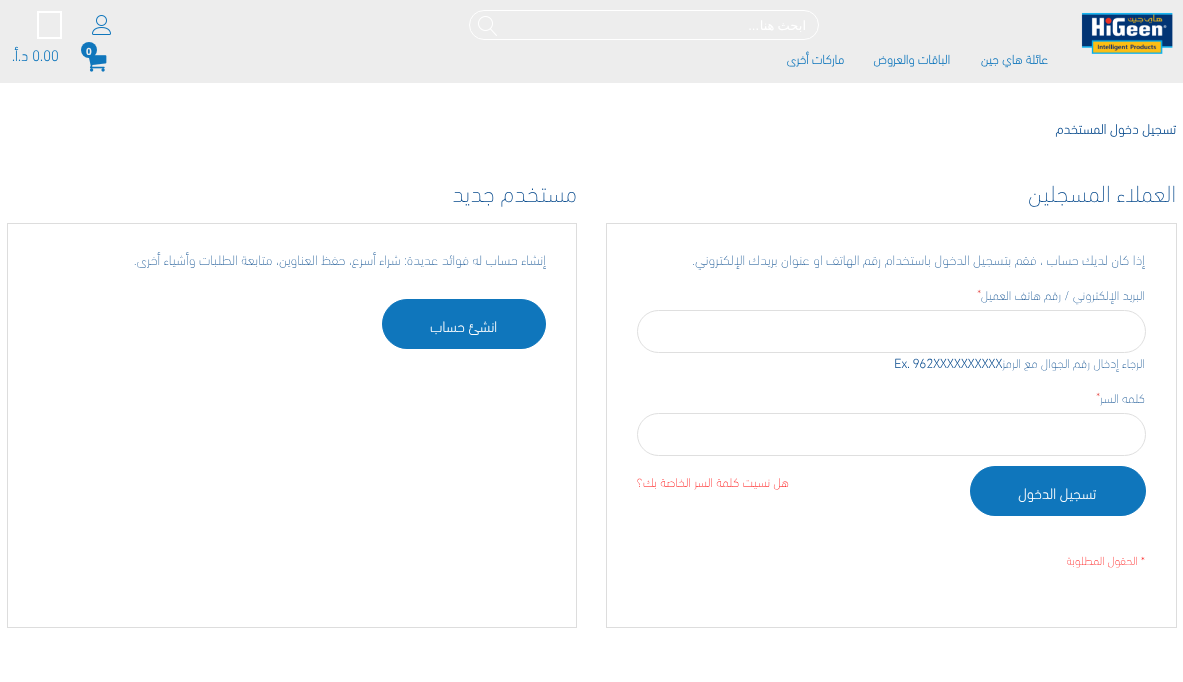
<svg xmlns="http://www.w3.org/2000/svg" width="1183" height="682">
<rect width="100%" height="100%" fill="#fff"/>
<rect width="1183" height="83" fill="#ededed"/>
<rect x="469.5" y="10.5" width="349" height="29" rx="14.5" fill="none" stroke="#fff"/>
<text x="806" y="30" word-spacing="-1" style="font-family:DejaVu Sans;font-size:13px;direction:rtl;fill:#fff">ابحث هنا</text>
<text x="759" y="30" style="font-family:Liberation Sans;font-size:13px;direction:rtl;fill:#fff">...</text>
<image x="478" y="16" width="19" height="20" href="media/1.png"/>
<image x="92" y="15" width="19" height="20" href="media/2.png"/>
<rect x="38" y="12" width="23" height="26" fill="none" stroke="#fff" stroke-width="2"/>
<image x="1081" y="12" width="92" height="42" href="media/3.png"/>
<text x="1048" y="64" style="font-family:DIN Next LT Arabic;font-size:13px;font-weight:bold;direction:rtl;fill:#0f76bc">عائلة هاي جين</text>
<text x="950" y="64" style="font-family:DIN Next LT Arabic;font-size:13px;font-weight:bold;direction:rtl;fill:#0f76bc">الباقات والعروض</text>
<text x="844" y="64" style="font-family:DIN Next LT Arabic;font-size:13px;font-weight:bold;direction:rtl;fill:#0f76bc">ماركات أخرى</text>
<image x="88" y="55" width="19" height="17" href="media/4.png"/>
<circle cx="89" cy="50" r="8" fill="#0f76bc"/>
<text x="86" y="55" style="font-family:Open Sans;font-size:10px;font-weight:bold;fill:#ededed">0</text>
<text x="32" y="61" style="font-family:DIN Next LT Arabic;font-size:15px;font-weight:bold;fill:#0f76bc">0.00</text>
<text x="28" y="61" style="font-family:DIN Next LT Arabic;font-size:15px;font-weight:bold;direction:rtl;fill:#0f76bc">د.أ.</text>
<text x="1176" y="134" style="font-family:DIN Next LT Arabic;font-size:14px;font-weight:bold;direction:rtl;fill:#06498c">تسجيل دخول المستخدم</text>
<text x="1176" y="202" style="font-family:DIN Next LT Arabic;font-size:24px;font-weight:200;direction:rtl;fill:#06498c">العملاء المسجلين</text>
<rect x="606.5" y="223.5" width="570" height="404" fill="none" stroke="#ddd"/>
<text x="1145" y="265" style="font-family:DIN Next LT Arabic;font-size:14px;font-weight:200;direction:rtl;fill:#06498c">إذا كان لديك حساب ، فقم بتسجيل الدخول باستخدام رقم الهاتف او عنوان بريدك الإلكتروني.</text>
<text x="1145" y="300" style="font-family:DIN Next LT Arabic;font-size:13px;font-weight:200;direction:rtl;fill:#06498c">البريد الإلكتروني / رقم هاتف العميل</text>
<text x="977" y="298" style="font-family:DIN Next LT Arabic;font-size:12px;font-weight:200;fill:#e02b27">*</text>
<rect x="637.5" y="310.5" width="508" height="42" rx="21" fill="none" stroke="#dfdfdf"/>
<text x="1145" y="368" style="font-family:DIN Next LT Arabic;font-size:13px;font-weight:200;direction:rtl;fill:#06498c">الرجاء إدخال رقم الجوال مع الرمز</text>
<text x="894" y="368" style="font-family:DIN Next LT Arabic;font-size:13px;font-weight:bold;fill:#06498c">Ex. 962XXXXXXXXXX</text>
<text x="1145" y="403" style="font-family:DIN Next LT Arabic;font-size:13px;font-weight:200;direction:rtl;fill:#06498c">كلمه السر</text>
<text x="1096" y="401" style="font-family:DIN Next LT Arabic;font-size:12px;font-weight:200;fill:#e02b27">*</text>
<rect x="637.5" y="413.5" width="508" height="42" rx="21" fill="none" stroke="#dfdfdf"/>
<text x="789" y="487" style="font-family:DIN Next LT Arabic;font-size:13px;font-weight:200;direction:rtl;fill:#f00">هل نسيت كلمة السر الخاصة بك؟</text>
<rect x="970.5" y="466.5" width="175" height="49" rx="24.5" fill="#0f76bc" stroke="#0f76bc"/>
<text x="1096" y="499" style="font-family:DIN Next LT Arabic;font-size:15px;font-weight:bold;direction:rtl;fill:#fff">تسجيل الدخول</text>
<text x="1145" y="565" style="font-family:DIN Next LT Arabic;font-size:12px;font-weight:200;direction:rtl;fill:#f00">* الحقول المطلوبة</text>
<text x="577" y="202" style="font-family:DIN Next LT Arabic;font-size:24px;font-weight:200;direction:rtl;fill:#06498c">مستخدم جديد</text>
<rect x="7.5" y="223.5" width="569" height="404" fill="none" stroke="#ddd"/>
<text x="546" y="265" style="font-family:DIN Next LT Arabic;font-size:14px;font-weight:200;direction:rtl;fill:#06498c">إنشاء حساب له فوائد عديدة: شراء أسرع، حفظ العناوين، متابعة الطلبات وأشياء أخرى.</text>
<rect x="382.5" y="299.5" width="163" height="49" rx="24.5" fill="#0f76bc" stroke="#0f76bc"/>
<text x="497" y="332" style="font-family:DIN Next LT Arabic;font-size:15px;font-weight:bold;direction:rtl;fill:#fff">انشئ حساب</text>
</svg>
